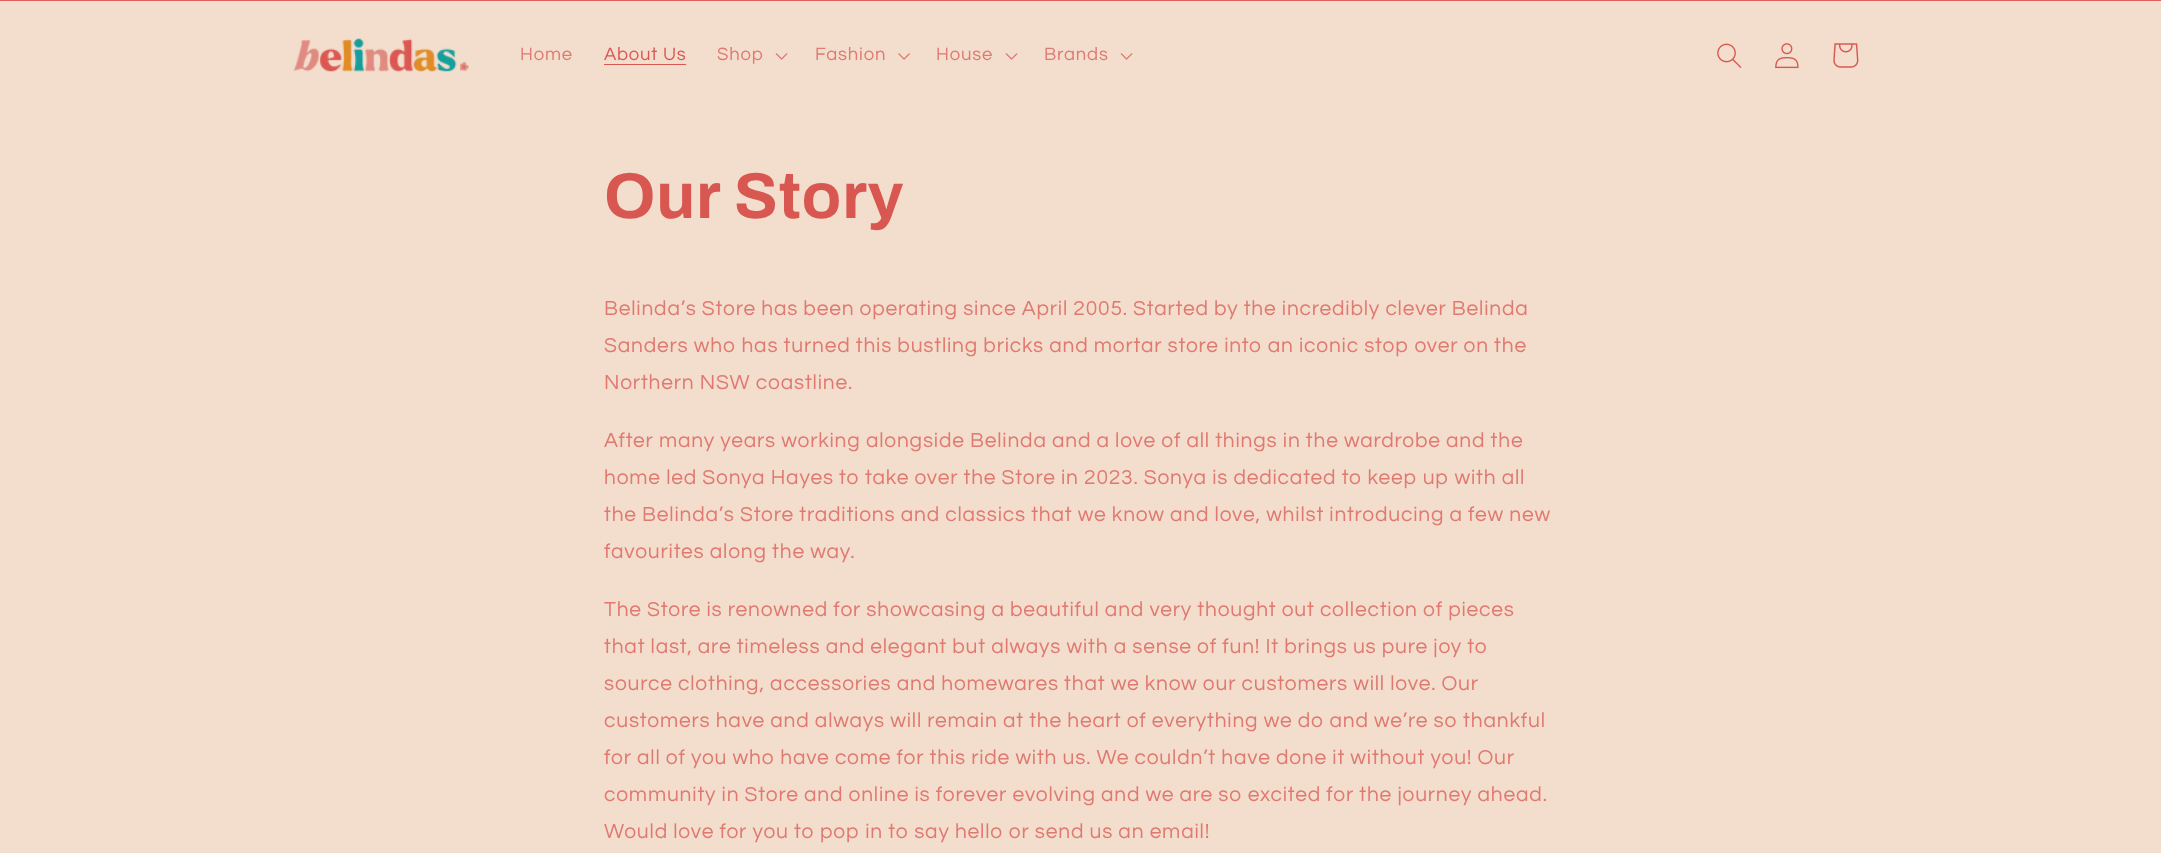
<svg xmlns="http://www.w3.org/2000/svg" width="2161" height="853">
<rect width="100%" height="100%" fill="#f3dece"/>
<rect width="2161" height="1" fill="#db625b"/>
<image x="293" y="38" width="176" height="34" href="media/1.png"/>
<text x="520" y="60" style="font-family:Questrial;font-size:18.5px;letter-spacing:0.8px;fill:#e07970">Home</text>
<text x="604" y="60" style="font-family:Questrial;font-size:18.5px;letter-spacing:0.8px;fill:#d95751">About Us</text>
<rect x="604" y="64" width="82" height="1" fill="#d95751"/>
<text x="717" y="60" style="font-family:Questrial;font-size:18.5px;letter-spacing:0.8px;fill:#e07970">Shop</text>
<image x="775" y="53" width="13" height="7" href="media/2.png"/>
<text x="815" y="60" style="font-family:Questrial;font-size:18.5px;letter-spacing:0.8px;fill:#e07970">Fashion</text>
<image x="898" y="53" width="12" height="7" href="media/3.png"/>
<text x="936" y="60" style="font-family:Questrial;font-size:18.5px;letter-spacing:0.8px;fill:#e07970">House</text>
<image x="1005" y="53" width="13" height="7" href="media/2.png"/>
<text x="1044" y="60" style="font-family:Questrial;font-size:18.5px;letter-spacing:0.8px;fill:#e07970">Brands</text>
<image x="1120" y="53" width="13" height="7" href="media/2.png"/>
<image x="1717" y="43" width="25" height="25" href="media/4.png"/>
<image x="1775" y="43" width="24" height="26" href="media/5.png"/>
<image x="1833" y="43" width="26" height="25" href="media/6.png"/>
<text x="604" y="218" style="font-family:Archivo;font-size:65px;font-weight:bold;letter-spacing:0.75px;fill:#d95751">Our Story</text>
<text x="604" y="315" style="font-family:Questrial;font-size:21px;letter-spacing:0.8px;fill:#e07970">Belinda’s Store has been operating since April 2005. Started by the incredibly clever Belinda</text>
<text x="604" y="352" style="font-family:Questrial;font-size:21px;letter-spacing:0.8px;fill:#e07970">Sanders who has turned this bustling bricks and mortar store into an iconic stop over on the</text>
<text x="604" y="389" style="font-family:Questrial;font-size:21px;letter-spacing:0.8px;fill:#e07970">Northern NSW coastline.</text>
<text x="604" y="447" style="font-family:Questrial;font-size:21px;letter-spacing:0.8px;fill:#e07970">After many years working alongside Belinda and a love of all things in the wardrobe and the</text>
<text x="604" y="484" style="font-family:Questrial;font-size:21px;letter-spacing:0.8px;fill:#e07970">home led Sonya Hayes to take over the Store in 2023. Sonya is dedicated to keep up with all</text>
<text x="604" y="521" style="font-family:Questrial;font-size:21px;letter-spacing:0.8px;fill:#e07970">the Belinda’s Store traditions and classics that we know and love, whilst introducing a few new</text>
<text x="604" y="558" style="font-family:Questrial;font-size:21px;letter-spacing:0.8px;fill:#e07970">favourites along the way.</text>
<text x="604" y="616" style="font-family:Questrial;font-size:21px;letter-spacing:0.8px;fill:#e07970">The Store is renowned for showcasing a beautiful and very thought out collection of pieces</text>
<text x="604" y="653" style="font-family:Questrial;font-size:21px;letter-spacing:0.8px;fill:#e07970">that last, are timeless and elegant but always with a sense of fun! It brings us pure joy to</text>
<text x="604" y="690" style="font-family:Questrial;font-size:21px;letter-spacing:0.8px;fill:#e07970">source clothing, accessories and homewares that we know our customers will love. Our</text>
<text x="604" y="727" style="font-family:Questrial;font-size:21px;letter-spacing:0.8px;fill:#e07970">customers have and always will remain at the heart of everything we do and we’re so thankful</text>
<text x="604" y="764" style="font-family:Questrial;font-size:21px;letter-spacing:0.8px;fill:#e07970">for all of you who have come for this ride with us. We couldn’t have done it without you! Our</text>
<text x="604" y="801" style="font-family:Questrial;font-size:21px;letter-spacing:0.8px;fill:#e07970">community in Store and online is forever evolving and we are so excited for the journey ahead.</text>
<text x="604" y="838" style="font-family:Questrial;font-size:21px;letter-spacing:0.8px;fill:#e07970">Would love for you to pop in to say hello or send us an email!</text>
</svg>
